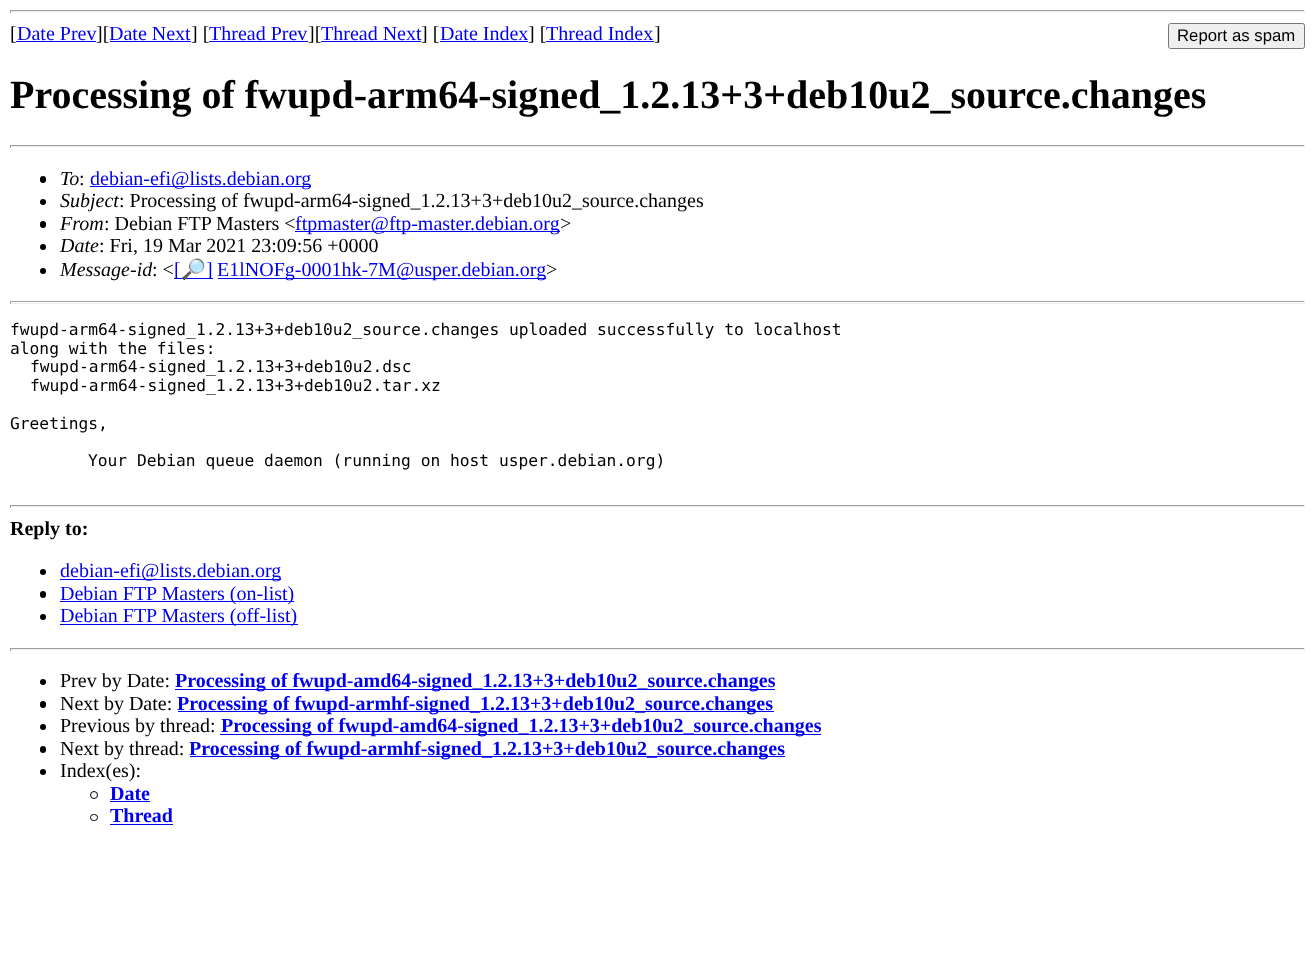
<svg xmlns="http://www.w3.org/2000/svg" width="1315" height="970">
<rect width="100%" height="100%" fill="#fff"/>
<rect x="10" y="10" width="1295" height="1" fill="#9f9f9f"/>
<rect x="1304" y="10" width="1" height="3" fill="#eee"/>
<rect x="10" y="11" width="1295" height="1" fill="#eee"/>
<rect x="10" y="10" width="1" height="3" fill="#9f9f9f"/>
<text x="10" y="40" style="font-family:Liberation Serif;font-size:20px;fill:#000">[</text>
<text x="17" y="40" style="font-family:Liberation Serif;font-size:20px;fill:#00e">Date Prev</text>
<rect x="16" y="41" width="80" height="1" fill="#00e"/>
<text x="96" y="40" style="font-family:Liberation Serif;font-size:20px;fill:#000">][</text>
<text x="109" y="40" style="font-family:Liberation Serif;font-size:20px;fill:#00e">Date Next</text>
<rect x="110" y="41" width="81" height="1" fill="#00e"/>
<text x="191" y="40" style="font-family:Liberation Serif;font-size:20px;fill:#000">] [</text>
<text x="209" y="40" style="font-family:Liberation Serif;font-size:20px;fill:#00e">Thread Prev</text>
<rect x="209" y="41" width="99" height="1" fill="#00e"/>
<text x="308" y="40" style="font-family:Liberation Serif;font-size:20px;fill:#000">][</text>
<text x="321" y="40" style="font-family:Liberation Serif;font-size:20px;fill:#00e">Thread Next</text>
<rect x="321" y="41" width="100" height="1" fill="#00e"/>
<text x="421" y="40" style="font-family:Liberation Serif;font-size:20px;fill:#000">] [</text>
<text x="440" y="40" style="font-family:Liberation Serif;font-size:20px;fill:#00e">Date Index</text>
<rect x="440" y="41" width="88" height="1" fill="#00e"/>
<text x="528" y="40" style="font-family:Liberation Serif;font-size:20px;fill:#000">] [</text>
<text x="546" y="40" style="font-family:Liberation Serif;font-size:20px;fill:#00e">Thread Index</text>
<rect x="546" y="41" width="108" height="1" fill="#00e"/>
<text x="654" y="40" style="font-family:Liberation Serif;font-size:20px;fill:#000">]</text>
<rect x="1168.5" y="23.5" width="136" height="25" rx="2" fill="#efefef" stroke="#767676"/>
<text x="1177" y="41" style="font-family:Liberation Sans;font-size:16.75px;fill:#000">Report as spam</text>
<text x="10" y="108" style="font-family:Liberation Serif;font-size:40px;font-weight:bold;fill:#000">Processing of fwupd-arm64-signed_1.2.13+3+deb10u2_source.changes</text>
<rect x="10" y="145" width="1295" height="1" fill="#9f9f9f"/>
<rect x="1304" y="145" width="1" height="3" fill="#eee"/>
<rect x="10" y="146" width="1295" height="1" fill="#eee"/>
<rect x="10" y="145" width="1" height="3" fill="#9f9f9f"/>
<rect x="40" y="176" width="6" height="7" rx="3" fill="#000"/>
<text x="60" y="185" style="font-family:Liberation Serif;font-size:20px;font-style:italic;fill:#000">To</text>
<text x="79" y="185" style="font-family:Liberation Serif;font-size:20px;fill:#000">:</text>
<rect x="90" y="186" width="221" height="1" fill="#00e"/>
<text x="90" y="185" style="font-family:Liberation Serif;font-size:20px;fill:#00e">debian-efi@lists.debian.org</text>
<circle cx="43" cy="202" r="3" fill="#000"/>
<text x="60" y="207" style="font-family:Liberation Serif;font-size:20px;font-style:italic;fill:#000">Subject</text>
<text x="119" y="207" style="font-family:Liberation Serif;font-size:20px;fill:#000">: Processing of fwupd-arm64-signed_1.2.13+3+deb10u2_source.changes</text>
<rect x="40" y="221" width="6" height="7" rx="3" fill="#000"/>
<text x="60" y="230" style="font-family:Liberation Serif;font-size:20px;font-style:italic;fill:#000">From</text>
<text x="104" y="230" style="font-family:Liberation Serif;font-size:20px;fill:#000">: Debian FTP Masters &lt;</text>
<rect x="295" y="231" width="265" height="1" fill="#00e"/>
<text x="295" y="230" style="font-family:Liberation Serif;font-size:20px;fill:#00e">ftpmaster@ftp-master.debian.org</text>
<text x="560" y="230" style="font-family:Liberation Serif;font-size:20px;fill:#000">&gt;</text>
<circle cx="43" cy="247" r="3" fill="#000"/>
<text x="60" y="252" style="font-family:Liberation Serif;font-size:20px;font-style:italic;fill:#000">Date</text>
<text x="99" y="252" style="font-family:Liberation Serif;font-size:20px;fill:#000">: Fri, 19 Mar 2021 23:09:56 +0000</text>
<circle cx="43" cy="271" r="3" fill="#000"/>
<text x="60" y="276" style="font-family:Liberation Serif;font-size:20px;font-style:italic;fill:#000">Message-id</text>
<text x="152" y="276" style="font-family:Liberation Serif;font-size:20px;fill:#000">: &lt;</text>
<rect x="174" y="278" width="39" height="1" fill="#00e"/>
<text x="174" y="276" style="font-family:Liberation Serif;font-size:20px;fill:#00e">[</text>
<text x="181" y="276" style="font-family:Noto Color Emoji;font-size:20px;fill:#00e">🔎</text>
<text x="206" y="276" style="font-family:Liberation Serif;font-size:20px;fill:#00e">]</text>
<rect x="218" y="278" width="328" height="1" fill="#00e"/>
<text x="217" y="276" style="font-family:Liberation Serif;font-size:20px;fill:#00e">E1lNOFg-0001hk-7M@usper.debian.org</text>
<text x="546" y="276" style="font-family:Liberation Serif;font-size:20px;fill:#000">&gt;</text>
<rect x="10" y="301" width="1295" height="1" fill="#9f9f9f"/>
<rect x="1304" y="301" width="1" height="3" fill="#eee"/>
<rect x="10" y="303" width="1295" height="1" fill="#eee"/>
<rect x="10" y="301" width="1" height="3" fill="#9f9f9f"/>
<text x="10" y="335" style="font-family:DejaVu Sans Mono;font-size:16.25px;fill:#000">fwupd-arm64-signed_1.2.13+3+deb10u2_source.changes uploaded successfully to localhost</text>
<text x="10" y="354" style="font-family:DejaVu Sans Mono;font-size:16.25px;fill:#000">along with the files:</text>
<text x="30" y="372" style="font-family:DejaVu Sans Mono;font-size:16.25px;fill:#000">fwupd-arm64-signed_1.2.13+3+deb10u2.dsc</text>
<text x="30" y="391" style="font-family:DejaVu Sans Mono;font-size:16.25px;fill:#000">fwupd-arm64-signed_1.2.13+3+deb10u2.tar.xz</text>
<text x="10" y="429" style="font-family:DejaVu Sans Mono;font-size:16.25px;fill:#000">Greetings,</text>
<text x="88" y="466" style="font-family:DejaVu Sans Mono;font-size:16.25px;fill:#000">Your Debian queue daemon (running on host usper.debian.org)</text>
<rect x="10" y="505" width="1295" height="1" fill="#9f9f9f"/>
<rect x="1304" y="505" width="1" height="3" fill="#eee"/>
<rect x="10" y="506" width="1295" height="1" fill="#eee"/>
<rect x="10" y="505" width="1" height="3" fill="#9f9f9f"/>
<text x="10" y="535" style="font-family:Liberation Serif;font-size:20px;font-weight:bold;fill:#000">Reply to:</text>
<circle cx="43" cy="572" r="3" fill="#000"/>
<rect x="60" y="579" width="221" height="1" fill="#00e"/>
<text x="60" y="577" style="font-family:Liberation Serif;font-size:20px;fill:#00e">debian-efi@lists.debian.org</text>
<rect x="40" y="591" width="6" height="7" rx="3" fill="#000"/>
<rect x="60" y="601" width="234" height="1" fill="#00e"/>
<text x="60" y="600" style="font-family:Liberation Serif;font-size:20px;fill:#00e">Debian FTP Masters (on-list)</text>
<circle cx="43" cy="617" r="3" fill="#000"/>
<rect x="60" y="624" width="238" height="1" fill="#00e"/>
<text x="60" y="622" style="font-family:Liberation Serif;font-size:20px;fill:#00e">Debian FTP Masters (off-list)</text>
<rect x="10" y="648" width="1295" height="1" fill="#9f9f9f"/>
<rect x="1304" y="648" width="1" height="3" fill="#eee"/>
<rect x="10" y="649" width="1295" height="1" fill="#eee"/>
<rect x="10" y="648" width="1" height="3" fill="#9f9f9f"/>
<circle cx="43" cy="682" r="3" fill="#000"/>
<text x="60" y="687" style="font-family:Liberation Serif;font-size:20px;fill:#000">Prev by Date:</text>
<rect x="175" y="689" width="600" height="1" fill="#00e"/>
<text x="175" y="687" style="font-family:Liberation Serif;font-size:20px;font-weight:bold;fill:#00e">Processing of fwupd-amd64-signed_1.2.13+3+deb10u2_source.changes</text>
<rect x="40" y="701" width="6" height="7" rx="3" fill="#000"/>
<text x="60" y="710" style="font-family:Liberation Serif;font-size:20px;fill:#000">Next by Date:</text>
<rect x="178" y="711" width="596" height="1" fill="#00e"/>
<text x="177" y="710" style="font-family:Liberation Serif;font-size:20px;font-weight:bold;fill:#00e">Processing of fwupd-armhf-signed_1.2.13+3+deb10u2_source.changes</text>
<circle cx="43" cy="727" r="3" fill="#000"/>
<text x="60" y="732" style="font-family:Liberation Serif;font-size:20px;fill:#000">Previous by thread:</text>
<rect x="220" y="734" width="601" height="1" fill="#00e"/>
<text x="221" y="732" style="font-family:Liberation Serif;font-size:20px;font-weight:bold;fill:#00e">Processing of fwupd-amd64-signed_1.2.13+3+deb10u2_source.changes</text>
<rect x="40" y="746" width="6" height="7" rx="3" fill="#000"/>
<text x="60" y="755" style="font-family:Liberation Serif;font-size:20px;fill:#000">Next by thread:</text>
<rect x="190" y="756" width="595" height="1" fill="#00e"/>
<text x="189" y="755" style="font-family:Liberation Serif;font-size:20px;font-weight:bold;fill:#00e">Processing of fwupd-armhf-signed_1.2.13+3+deb10u2_source.changes</text>
<circle cx="43" cy="772" r="3" fill="#000"/>
<text x="60" y="777" style="font-family:Liberation Serif;font-size:20px;fill:#000">Index(es):</text>
<circle cx="94" cy="795" r="3.5" fill="none" stroke="#000"/>
<text x="110" y="800" style="font-family:Liberation Serif;font-size:20px;font-weight:bold;fill:#00e">Date</text>
<rect x="110" y="801" width="40" height="1" fill="#00e"/>
<rect x="90.5" y="814.5" width="7" height="6" rx="3" fill="none" stroke="#000"/>
<text x="110" y="822" style="font-family:Liberation Serif;font-size:20px;font-weight:bold;fill:#00e">Thread</text>
<rect x="110" y="824" width="63" height="1" fill="#00e"/>
</svg>
